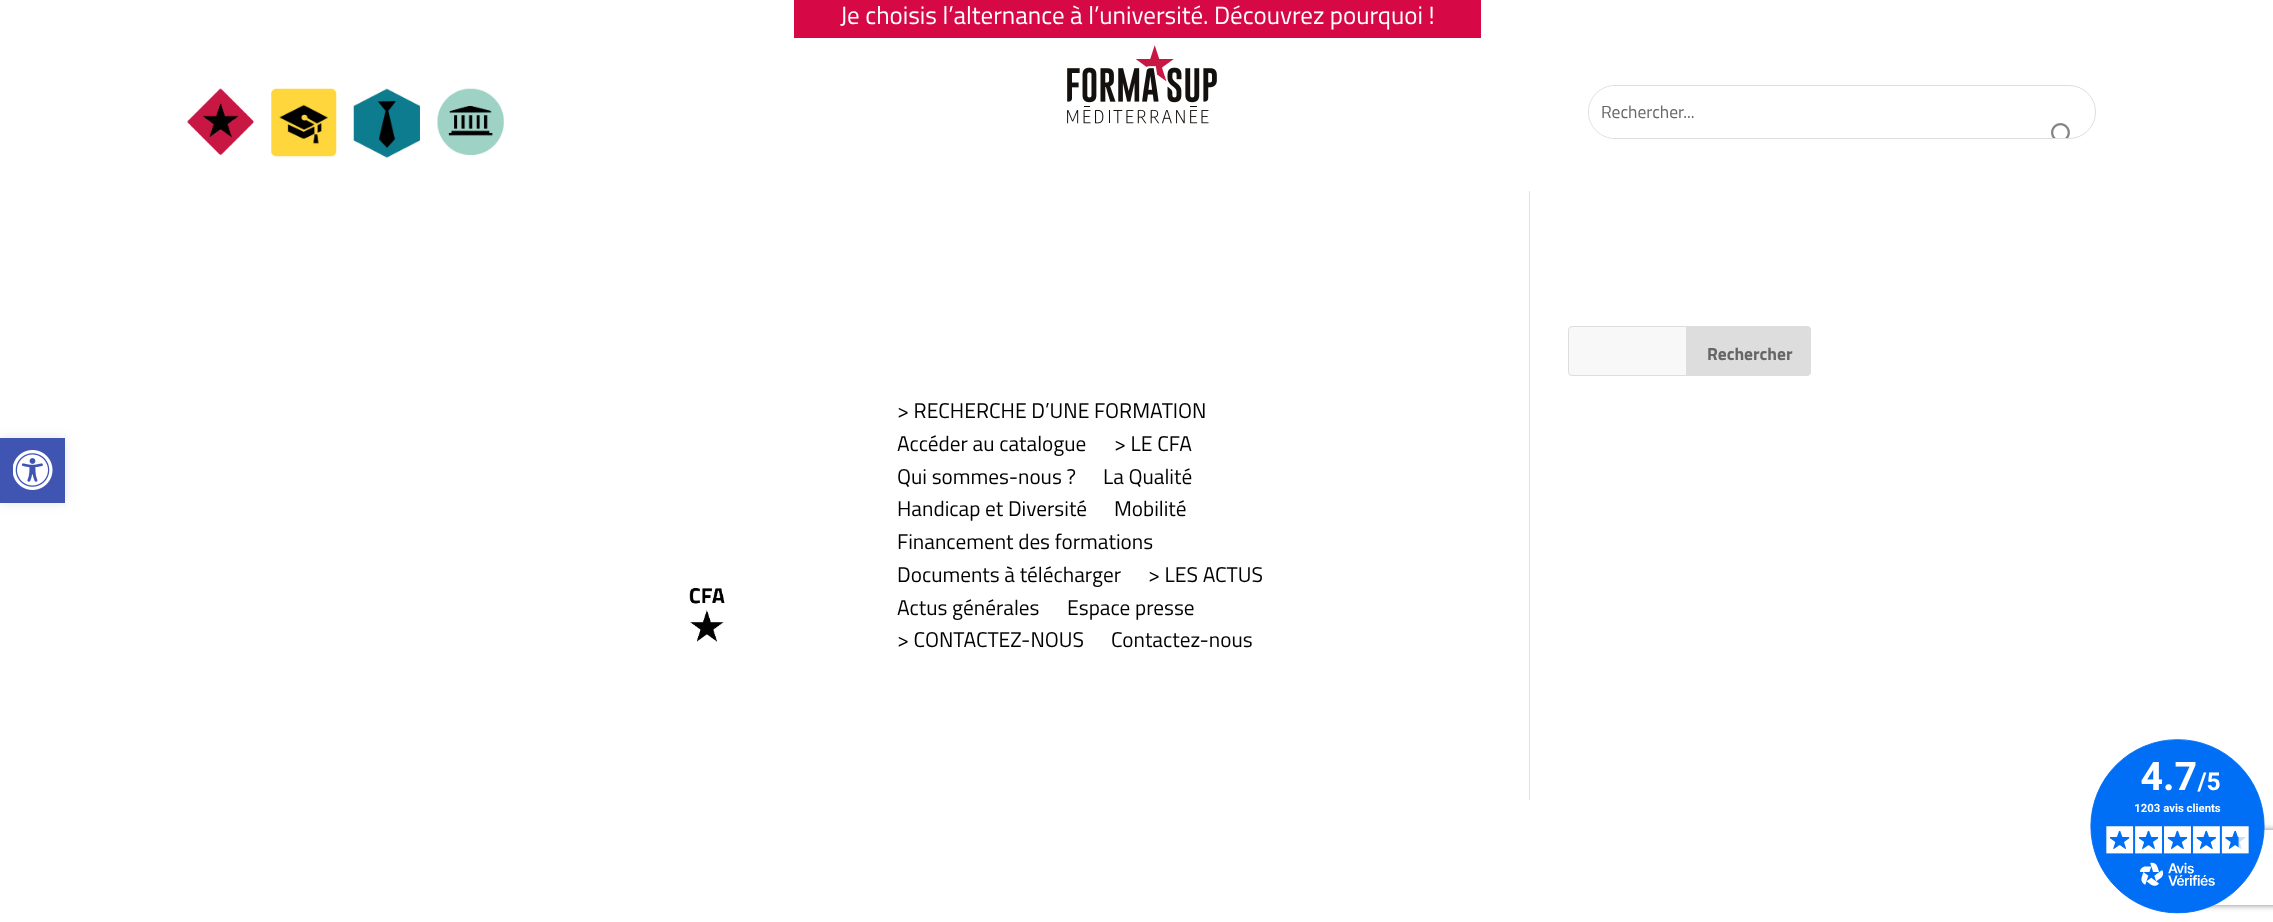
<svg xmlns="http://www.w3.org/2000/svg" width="2273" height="922">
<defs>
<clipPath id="clip1"><path d="M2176 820h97v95h-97zm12.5 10h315c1.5 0 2.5 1 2.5 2.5v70c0 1.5-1 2.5-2.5 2.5h-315c-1.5 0-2.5-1-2.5-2.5v-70c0-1.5 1-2.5 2.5-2.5z" clip-rule="evenodd"/></clipPath>
</defs>
<rect width="100%" height="100%" fill="#fff"/>
<rect y="438" width="65" height="65" fill="#0000001a" filter="blur(6px)"/>
<rect y="438" width="65" height="65" fill="#4054b2"/>
<image x="13" y="450" width="40" height="40" href="media/1.png"/>
<rect x="794" width="687" height="38" fill="#d70846"/>
<text x="840" y="24" style="font-family:Titillium Web;font-size:25px;fill:#fff">Je choisis l’alternance à l’université. Découvrez pourquoi !</text>
<image x="1067" y="45" width="150" height="79" href="media/2.png"/>
<image x="187" y="88" width="67" height="67" href="media/3.png"/>
<image x="271" y="88" width="66" height="69" href="media/4.png"/>
<image x="353" y="88" width="67" height="70" href="media/5.png"/>
<image x="437" y="88" width="67" height="67" href="media/6.png"/>
<rect x="1588.5" y="85.5" width="507" height="53" rx="26.5" fill="none" stroke="#ddd"/>
<rect x="1589" y="86" width="381" height="52" rx="26" fill="#fff"/>
<text x="1601" y="118" style="font-family:Titillium Web;font-size:17.5px;fill:#666">Rechercher...</text>
<image x="2051" y="123" width="19" height="15" href="media/7.png"/>
<rect x="1529" y="191" width="1" height="609" fill="#e2e2e2"/>
<rect x="1568.5" y="326.5" width="242" height="49" rx="3.5" fill="#f8f8f8" stroke="#ddd"/>
<path d="M1686.5 326.5h120.5c2 0 3.5 1.5 3.5 3.5v42c0 2-1.5 3.5-3.5 3.5h-120.5z" fill="#ddd" stroke="#ddd"/>
<text x="1707" y="360" style="font-family:Titillium Web;font-size:17.5px;font-weight:bold;fill:#666">Rechercher</text>
<image x="689" y="587" width="36" height="55" href="media/8.png"/>
<text x="897" y="418" style="font-family:Titillium Web;font-size:21.25px;fill:#000">&gt; RECHERCHE D’UNE FORMATION</text>
<text x="897" y="451" style="font-family:Titillium Web;font-size:21.25px;fill:#000">Accéder au catalogue</text>
<text x="1114" y="451" style="font-family:Titillium Web;font-size:21.25px;fill:#000">&gt; LE CFA</text>
<text x="897" y="484" style="font-family:Titillium Web;font-size:21.25px;fill:#000">Qui sommes-nous ?</text>
<text x="1103" y="484" style="font-family:Titillium Web;font-size:21.25px;fill:#000">La Qualité</text>
<text x="897" y="516" style="font-family:Titillium Web;font-size:21.25px;fill:#000">Handicap et Diversité</text>
<text x="1114" y="516" style="font-family:Titillium Web;font-size:21.25px;fill:#000">Mobilité</text>
<text x="897" y="549" style="font-family:Titillium Web;font-size:21.25px;fill:#000">Financement des formations</text>
<text x="897" y="582" style="font-family:Titillium Web;font-size:21.25px;fill:#000">Documents à télécharger</text>
<text x="1148" y="582" style="font-family:Titillium Web;font-size:21.25px;fill:#000">&gt; LES ACTUS</text>
<text x="897" y="615" style="font-family:Titillium Web;font-size:21.25px;fill:#000">Actus générales</text>
<text x="1067" y="615" style="font-family:Titillium Web;font-size:21.25px;fill:#000">Espace presse</text>
<text x="897" y="647" style="font-family:Titillium Web;font-size:21.25px;fill:#000">&gt; CONTACTEZ-NOUS</text>
<text x="1111" y="647" style="font-family:Titillium Web;font-size:21.25px;fill:#000">Contactez-nous</text>
<g clip-path="url(#clip1)">
<rect x="2186" y="830" width="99" height="75" rx="2.5" fill="#808080" filter="blur(3px)"/>
</g>
<image x="2090" y="739" width="175" height="175" href="media/9.png"/>
</svg>
